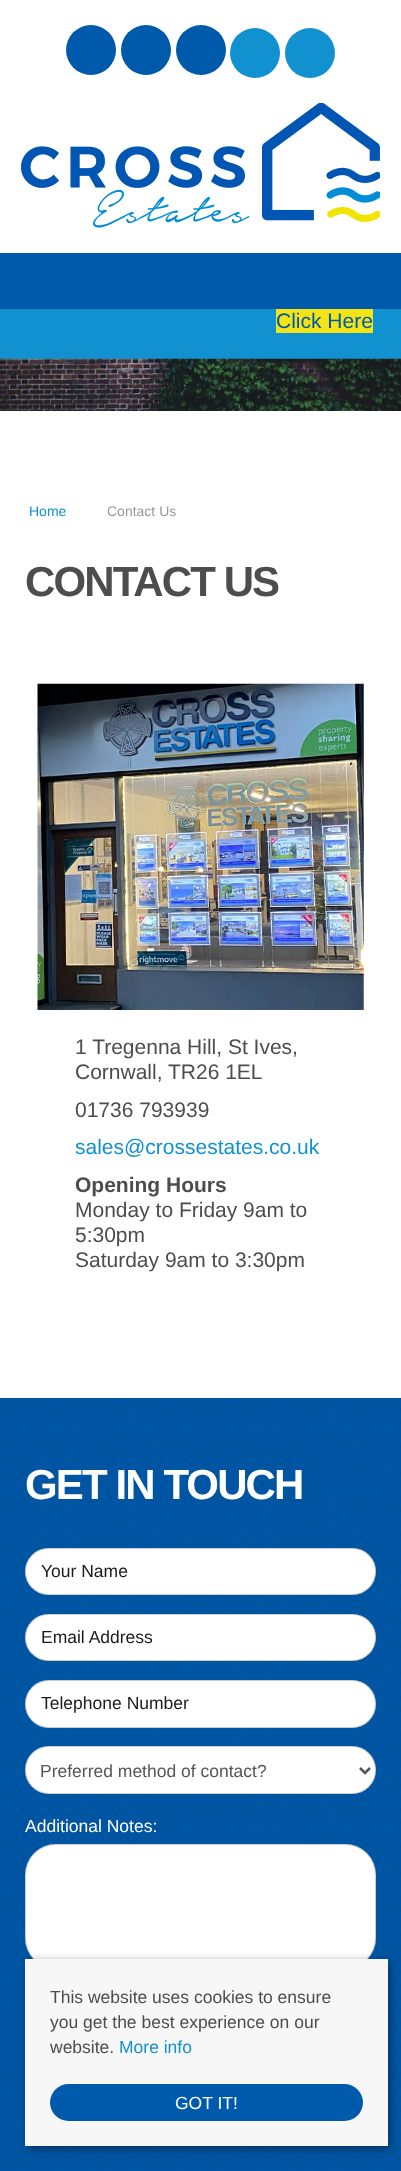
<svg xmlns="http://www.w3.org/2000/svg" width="401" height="2171">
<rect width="100%" height="100%" fill="#005aab"/>
<rect width="401" height="253" fill="#fff"/>
<circle cx="91" cy="50" r="25" fill="#005aab"/>
<circle cx="146" cy="50" r="25" fill="#005aab"/>
<circle cx="201" cy="50" r="25" fill="#005aab"/>
<circle cx="255" cy="53" r="25" fill="#1191d0"/>
<circle cx="310" cy="53" r="25" fill="#1191d0"/>
<image x="21" y="103" width="359" height="125" href="media/1.png"/>
<rect y="309" width="401" height="50" fill="#1191d0"/>
<rect x="276" y="309" width="97" height="24" fill="#f4e415"/>
<text x="276" y="328" style="font-family:Liberation Sans;font-size:21px;fill:#005aab">Click Here</text>
<image x="0" y="358" width="401" height="53" href="media/2.png"/>
<rect y="411" width="401" height="987" fill="#fff"/>
<text x="29" y="516" style="font-family:Liberation Sans;font-size:14px;fill:#1191d0">Home</text>
<text x="107" y="516" style="font-family:Liberation Sans;font-size:14px;fill:#999">Contact Us</text>
<text x="25" y="596" style="font-family:Liberation Sans;font-size:42px;font-weight:bold;letter-spacing:-1.9px;fill:#4d4d4d">CONTACT US</text>
<image x="37" y="683" width="327" height="327" href="media/3.png"/>
<text x="75" y="1054" style="font-family:Liberation Sans;font-size:21px;fill:#4d4d4d">1 Tregenna Hill, St Ives,</text>
<text x="75" y="1079" style="font-family:Liberation Sans;font-size:21px;fill:#4d4d4d">Cornwall, TR26 1EL</text>
<text x="75" y="1117" style="font-family:Liberation Sans;font-size:21px;fill:#4d4d4d">01736 793939</text>
<text x="75" y="1154" style="font-family:Liberation Sans;font-size:21px;fill:#1191d0">sales@crossestates.co.uk</text>
<text x="75" y="1192" style="font-family:Liberation Sans;font-size:21px;font-weight:bold;fill:#4d4d4d">Opening Hours</text>
<text x="75" y="1217" style="font-family:Liberation Sans;font-size:21px;fill:#4d4d4d">Monday to Friday 9am to</text>
<text x="75" y="1242" style="font-family:Liberation Sans;font-size:21px;fill:#4d4d4d">5:30pm</text>
<text x="75" y="1267" style="font-family:Liberation Sans;font-size:21px;fill:#4d4d4d">Saturday 9am to 3:30pm</text>
<image x="0" y="1397" width="401" height="774" href="media/4.png"/>
<text x="25" y="1499" style="font-family:Liberation Sans;font-size:42px;font-weight:bold;letter-spacing:-1.9px;fill:#fff">GET IN TOUCH</text>
<rect x="25" y="1548" width="351" height="47" rx="23.5" fill="#fff"/>
<rect x="25.5" y="1548.5" width="350" height="46" rx="23" fill="none" stroke="#00000033"/>
<text x="41" y="1577" style="font-family:Liberation Sans;font-size:17.5px;fill:#1a1a1a">Your Name</text>
<rect x="25" y="1614" width="351" height="47" rx="23.5" fill="#fff"/>
<rect x="25.5" y="1614.5" width="350" height="46" rx="23" fill="none" stroke="#00000033"/>
<text x="41" y="1643" style="font-family:Liberation Sans;font-size:17.5px;fill:#1a1a1a">Email Address</text>
<rect x="25" y="1680" width="351" height="48" rx="24" fill="#fff"/>
<rect x="25.5" y="1680.5" width="350" height="47" rx="23.5" fill="none" stroke="#00000033"/>
<text x="41" y="1709" style="font-family:Liberation Sans;font-size:17.5px;fill:#1a1a1a">Telephone Number</text>
<rect x="25" y="1746" width="351" height="48" rx="24" fill="#fff"/>
<rect x="25.5" y="1746.5" width="350" height="47" rx="23.5" fill="none" stroke="#00000033"/>
<path d="M360 1768l5 5l5-5" fill="none" stroke="#555" stroke-width="2.5"/>
<text x="40" y="1777" style="font-family:Liberation Sans;font-size:17.5px;fill:#555">Preferred method of contact?</text>
<text x="25" y="1832" style="font-family:Liberation Sans;font-size:17.5px;fill:#fff">Additional Notes:</text>
<rect x="25" y="1844" width="351" height="125" rx="31" fill="#fff"/>
<rect x="25.5" y="1844.5" width="350" height="124" rx="30.5" fill="none" stroke="#00000033"/>
<rect x="28" y="1961" width="362" height="188" fill="#00000066" filter="blur(4.5px)"/>
<rect x="25" y="1959" width="363" height="187" fill="#f7f7f7"/>
<text x="50" y="2003" style="font-family:Liberation Sans;font-size:17.5px;fill:#4d4d4d">This website uses cookies to ensure</text>
<text x="50" y="2028" style="font-family:Liberation Sans;font-size:17.5px;fill:#4d4d4d">you get the best experience on our</text>
<text x="50" y="2053" style="font-family:Liberation Sans;font-size:17.5px;fill:#4d4d4d">website.</text>
<text x="119" y="2053" style="font-family:Liberation Sans;font-size:17.5px;fill:#1191d0">More info</text>
<rect x="50" y="2084" width="313" height="37" rx="18.5" fill="#005aab"/>
<text x="175" y="2109" style="font-family:Liberation Sans;font-size:17.5px;fill:#fff">GOT IT!</text>
</svg>
